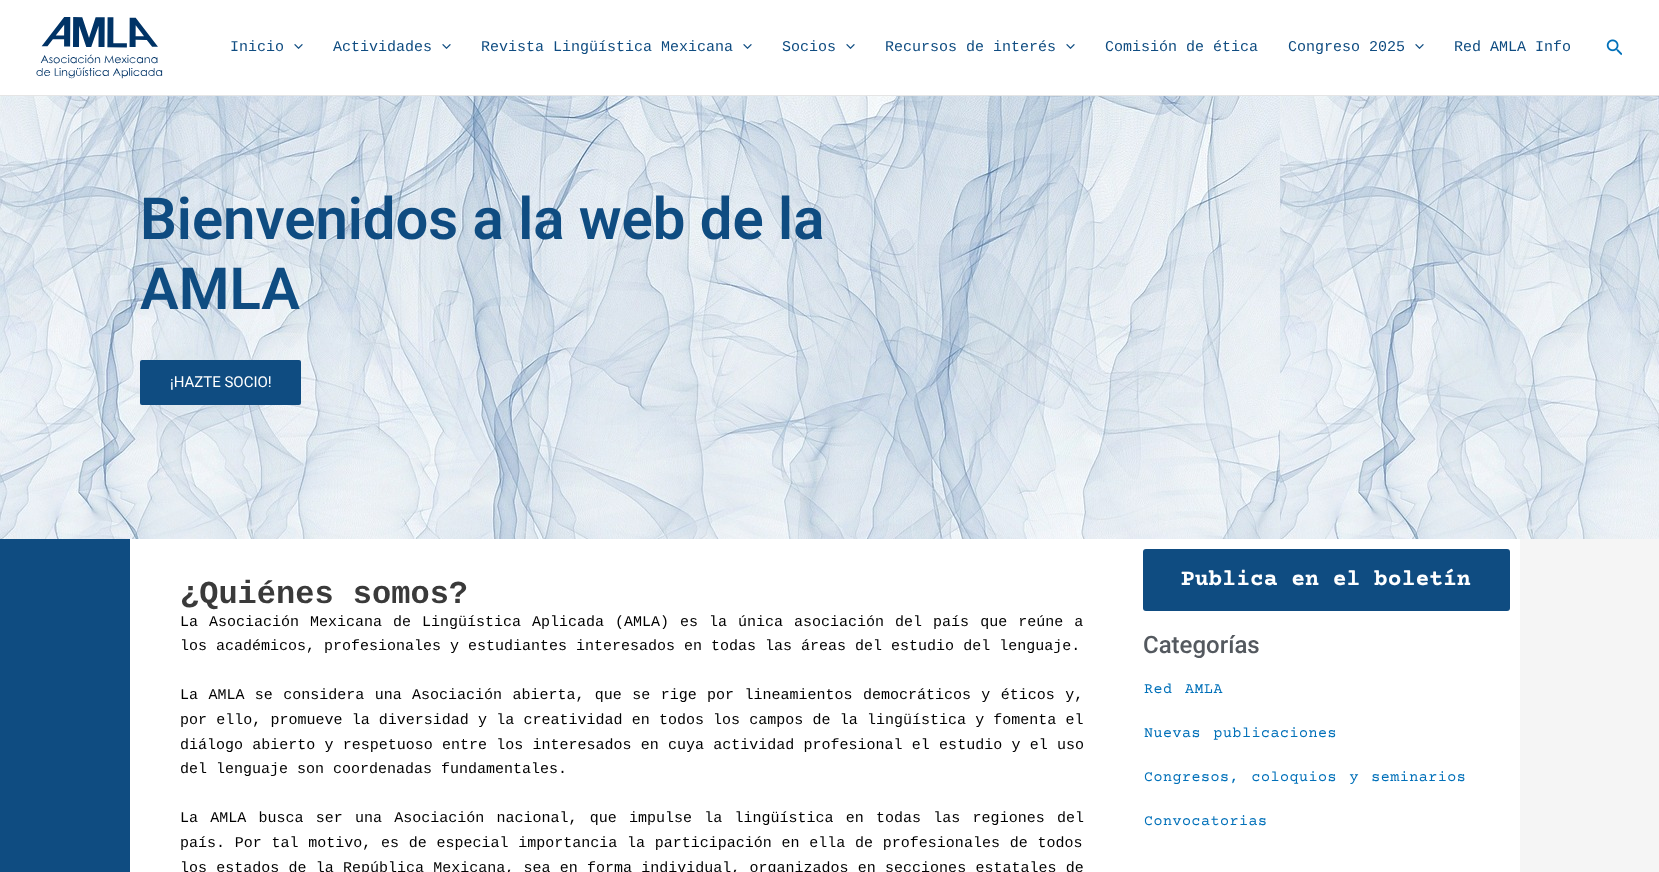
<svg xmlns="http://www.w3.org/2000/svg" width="1659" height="872">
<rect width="100%" height="100%" fill="#f5f5f5"/>
<rect width="1659" height="95" fill="#fff"/>
<rect y="95" width="1659" height="1" fill="#e5e5e5"/>
<image x="36" y="17" width="127" height="62" href="media/1.png"/>
<text x="230" y="51" style="font-family:Liberation Mono;font-size:15px;fill:#0f4c81">Inicio</text>
<image x="294" y="44" width="9" height="5" href="media/2.png"/>
<text x="333" y="51" style="font-family:Liberation Mono;font-size:15px;fill:#0f4c81">Actividades</text>
<image x="442" y="44" width="9" height="5" href="media/2.png"/>
<text x="481" y="51" style="font-family:Liberation Mono;font-size:15px;fill:#0f4c81">Revista Lingüística Mexicana</text>
<image x="743" y="44" width="9" height="5" href="media/2.png"/>
<text x="782" y="51" style="font-family:Liberation Mono;font-size:15px;fill:#0f4c81">Socios</text>
<image x="846" y="44" width="9" height="5" href="media/2.png"/>
<text x="885" y="51" style="font-family:Liberation Mono;font-size:15px;fill:#0f4c81">Recursos de interés</text>
<image x="1066" y="44" width="9" height="5" href="media/2.png"/>
<text x="1105" y="51" style="font-family:Liberation Mono;font-size:15px;fill:#0f4c81">Comisión de ética</text>
<text x="1288" y="51" style="font-family:Liberation Mono;font-size:15px;fill:#0f4c81">Congreso 2025</text>
<image x="1415" y="44" width="9" height="5" href="media/2.png"/>
<text x="1454" y="51" style="font-family:Liberation Mono;font-size:15px;fill:#0f4c81">Red AMLA Info</text>
<image x="1606" y="39" width="16" height="17" href="media/3.png"/>
<image x="0" y="96" width="1659" height="443" href="media/4.png"/>
<text x="140" y="239" style="font-family:Roboto;font-size:58px;font-weight:600;fill:#0f4c81">Bienvenidos a la web de la</text>
<text x="140" y="309" style="font-family:Roboto;font-size:58px;font-weight:600;fill:#0f4c81">AMLA</text>
<rect x="140" y="360" width="161" height="45" rx="2" fill="#0f4c81"/>
<text x="170" y="387" style="font-family:Roboto;font-size:15px;fill:#fff">¡HAZTE SOCIO!</text>
<rect y="539" width="130" height="333" fill="#0f4c81"/>
<rect x="130" y="539" width="1390" height="333" fill="#fff"/>
<text x="180" y="603" style="font-family:Liberation Mono;font-size:32px;font-weight:bold;fill:#3a3a3a">¿Quiénes somos?</text>
<text x="180" y="626" word-spacing="2" style="font-family:Liberation Mono;font-size:15px;fill:#000">La Asociación Mexicana de Lingüística Aplicada (AMLA) es la única asociación del país que reúne a</text>
<text x="180" y="650" style="font-family:Liberation Mono;font-size:15px;fill:#000">los académicos, profesionales y estudiantes interesados en todas las áreas del estudio del lenguaje.</text>
<text x="180" y="699" word-spacing="1.4" style="font-family:Liberation Mono;font-size:15px;fill:#000">La AMLA se considera una Asociación abierta, que se rige por lineamientos democráticos y éticos y,</text>
<text x="180" y="724" word-spacing="0.2" style="font-family:Liberation Mono;font-size:15px;fill:#000">por ello, promueve la diversidad y la creatividad en todos los campos de la lingüística y fomenta el</text>
<text x="180" y="749" word-spacing="0.25" style="font-family:Liberation Mono;font-size:15px;fill:#000">diálogo abierto y respetuoso entre los interesados en cuya actividad profesional el estudio y el uso</text>
<text x="180" y="773" style="font-family:Liberation Mono;font-size:15px;fill:#000">del lenguaje son coordenadas fundamentales.</text>
<text x="180" y="822" word-spacing="3.25" style="font-family:Liberation Mono;font-size:15px;fill:#000">La AMLA busca ser una Asociación nacional, que impulse la lingüística en todas las regiones del</text>
<text x="180" y="847" word-spacing="0.75" style="font-family:Liberation Mono;font-size:15px;fill:#000">país. Por tal motivo, es de especial importancia la participación en ella de profesionales de todos</text>
<text x="180" y="872" word-spacing="0.25" style="font-family:Liberation Mono;font-size:15px;fill:#000">los estados de la República Mexicana, sea en forma individual, organizados en secciones estatales de</text>
<rect x="1143" y="549" width="367" height="62" rx="3" fill="#0f4c81"/>
<text x="1181" y="585" style="font-family:Courier Prime;font-size:23px;font-weight:bold;fill:#fff">Publica en el boletín</text>
<text x="1143" y="653" style="font-family:Roboto;font-size:24px;font-weight:500;fill:#54595f">Categorías</text>
<text x="1144" y="693" word-spacing="3" style="font-family:Courier Prime;font-size:15px;letter-spacing:0.5px;fill:#0170b9">Red AMLA</text>
<text x="1144" y="737" word-spacing="3" style="font-family:Courier Prime;font-size:15px;letter-spacing:0.5px;fill:#0170b9">Nuevas publicaciones</text>
<text x="1144" y="781" word-spacing="3" style="font-family:Courier Prime;font-size:15px;letter-spacing:0.5px;fill:#0170b9">Congresos, coloquios y seminarios</text>
<text x="1144" y="825" style="font-family:Courier Prime;font-size:15px;letter-spacing:0.5px;fill:#0170b9">Convocatorias</text>
</svg>
